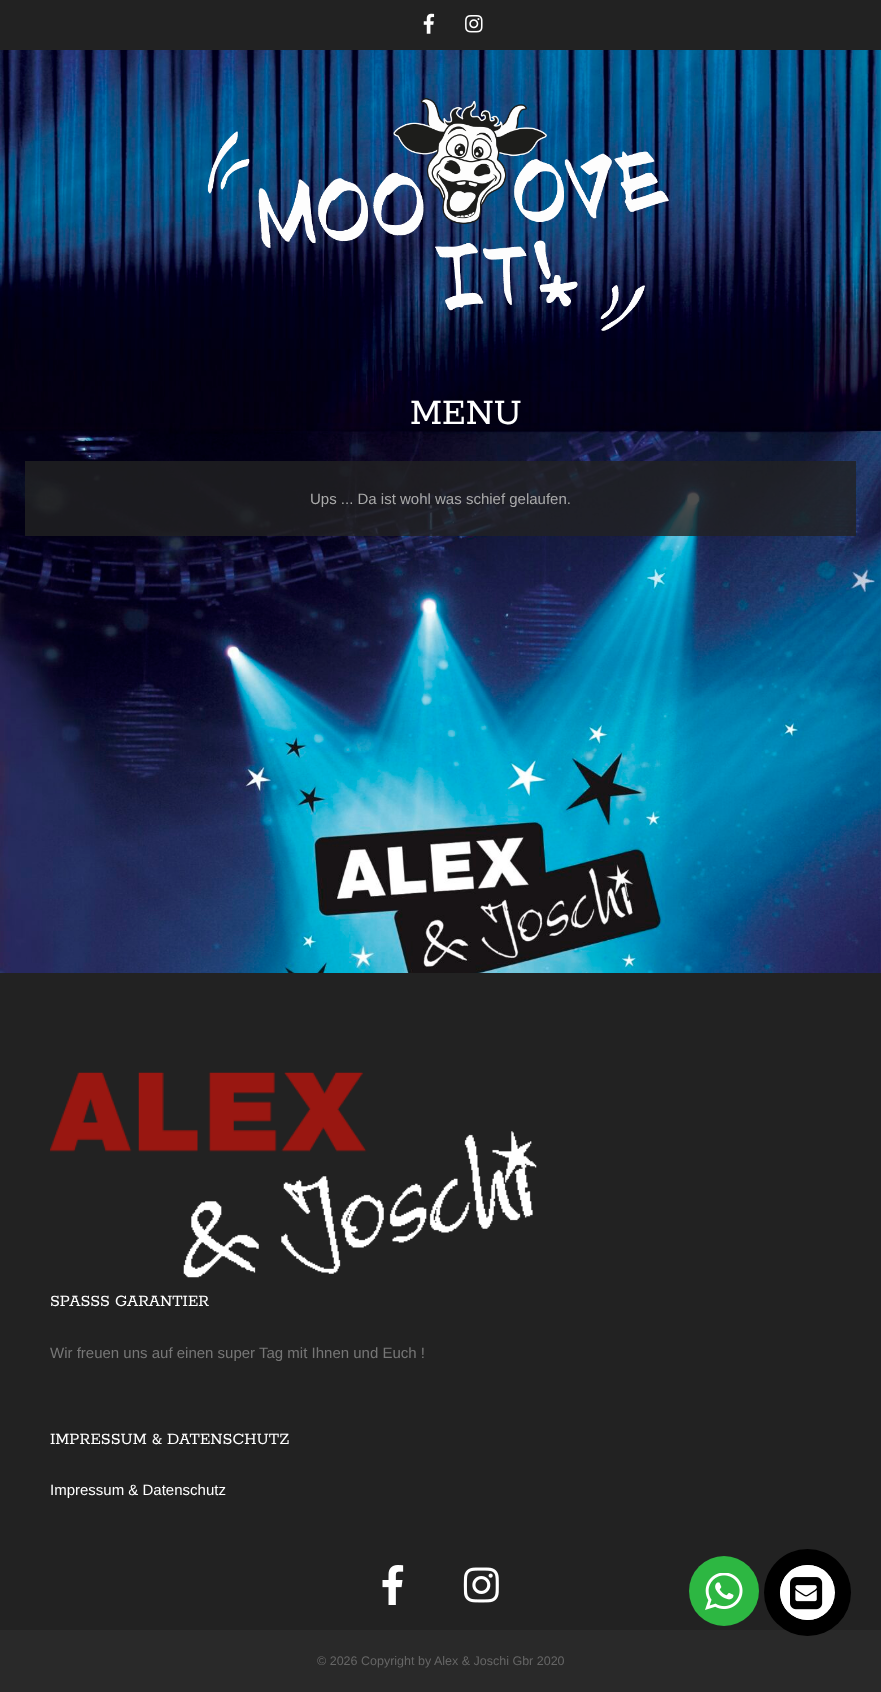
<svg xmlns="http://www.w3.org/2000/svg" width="881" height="1692">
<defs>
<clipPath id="clip1"><rect x="780" y="1565" width="55" height="55" rx="27.5"/></clipPath>
</defs>
<rect width="100%" height="100%" fill="#fff"/>
<image x="0" y="50" width="881" height="923" href="media/1.png"/>
<rect width="881" height="50" fill="#222"/>
<image x="423" y="13" width="12" height="21" href="media/2.png"/>
<image x="465" y="15" width="18" height="18" href="media/3.png"/>
<image x="207" y="98" width="462" height="233" href="media/4.png"/>
<text x="410" y="424" style="font-family:Rokkitt;font-size:40px;fill:#fff">MENU</text>
<rect x="25" y="461" width="831" height="75" fill="#222222cc"/>
<text x="310" y="504" style="font-family:Liberation Sans;font-size:15px;fill:#aaa">Ups ... Da ist wohl was schief gelaufen.</text>
<rect y="973" width="881" height="657" fill="#222"/>
<image x="50" y="1072" width="487" height="206" href="media/5.png"/>
<text x="50" y="1306" style="font-family:Rokkitt;font-size:17.5px;fill:#fff">SPASSS GARANTIER</text>
<text x="50" y="1358" style="font-family:Liberation Sans;font-size:15px;fill:#777">Wir freuen uns auf einen super Tag mit Ihnen und Euch !</text>
<text x="50" y="1444" style="font-family:Rokkitt;font-size:17.5px;fill:#fff">IMPRESSUM &amp; DATENSCHUTZ</text>
<text x="50" y="1495" style="font-family:Liberation Sans;font-size:15px;fill:#fff">Impressum &amp; Datenschutz</text>
<image x="382" y="1565" width="22" height="40" href="media/6.png"/>
<image x="463" y="1567" width="36" height="36" href="media/7.png"/>
<rect y="1630" width="881" height="62" fill="#292929"/>
<text x="317" y="1665" style="font-family:Liberation Sans;font-size:12.5px;fill:#666">© 2026 Copyright by Alex &amp; Joschi Gbr 2020</text>
<circle cx="724" cy="1591" r="35" fill="#2db742"/>
<image x="705" y="1573" width="38" height="37" href="media/8.png"/>
<circle cx="807.5" cy="1592.5" r="43.5" fill="#000"/>
<circle cx="807.5" cy="1592.5" r="27.5" fill="#fff"/>
<g clip-path="url(#clip1)">
<path d="M807.5 1565h25.5v55h-25.5c-15 0-27.5-12.5-27.5-27.5c0-15 12.5-27.5 27.5-27.5z" fill="#fff"/>
</g>
<image x="790" y="1577" width="33" height="33" href="media/9.png"/>
</svg>
